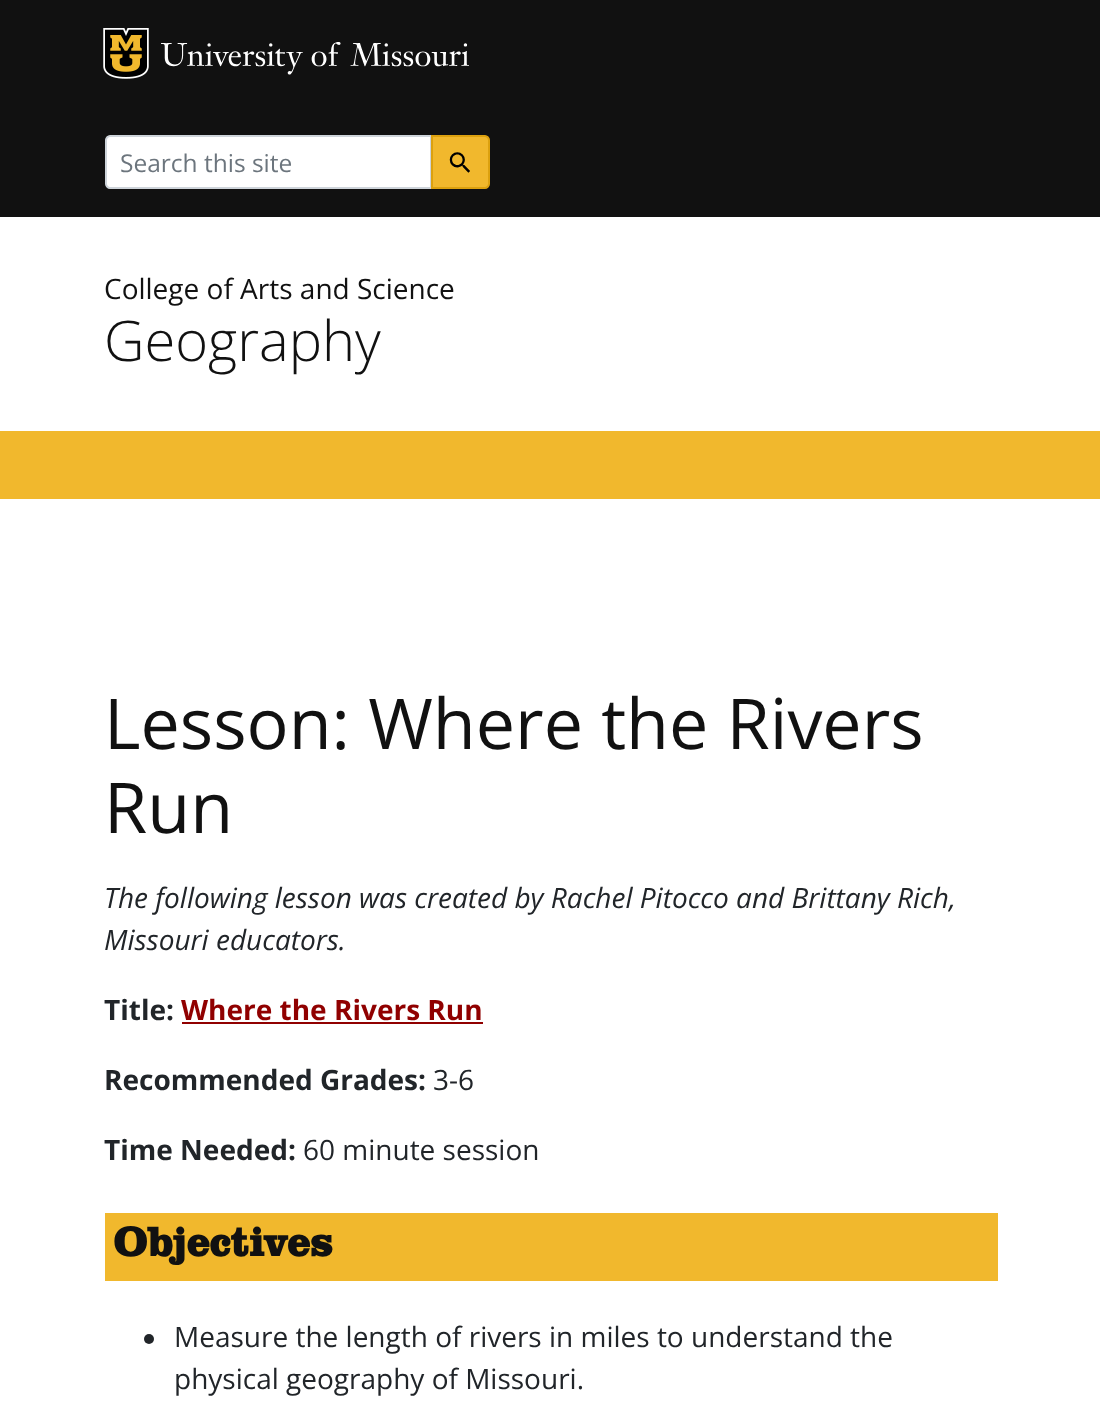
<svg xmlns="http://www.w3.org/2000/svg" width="1100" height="1416">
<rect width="100%" height="100%" fill="#fff"/>
<rect width="1100" height="217" fill="#111"/>
<image x="103" y="28" width="46" height="51" href="media/1.png"/>
<image x="161" y="42" width="308" height="33" href="media/2.png"/>
<path d="M110 136h321v52h-321c-2 0-4-2-4-4v-44c0-2 2-4 4-4z" fill="#fff" stroke="#ced4da" stroke-width="2"/>
<text x="120" y="172" style="font-family:Open Sans;font-size:24.5px;fill:#6c757d">Search this site</text>
<path d="M432 136h53c2 0 4 2 4 4v44c0 2-2 4-4 4h-53z" fill="#f1b82d" stroke="#dca10f" stroke-width="2"/>
<image x="449" y="152" width="21" height="21" href="media/3.png"/>
<text x="104" y="299" style="font-family:Open Sans;font-size:28px;fill:#111">College of Arts and Science</text>
<text x="104" y="361" style="font-family:Open Sans;font-size:56px;font-weight:300;fill:#111">Geography</text>
<rect y="431" width="1100" height="68" fill="#f1b82d"/>
<text x="104" y="749" style="font-family:Open Sans;font-size:70px;fill:#111">Lesson: Where the Rivers</text>
<text x="104" y="833" style="font-family:Open Sans;font-size:70px;fill:#111">Run</text>
<text x="104" y="908" style="font-family:Open Sans;font-size:28px;font-style:italic;fill:#212529">The following lesson was created by Rachel Pitocco and Brittany Rich,</text>
<text x="104" y="950" style="font-family:Open Sans;font-size:28px;font-style:italic;fill:#212529">Missouri educators.</text>
<text x="104" y="1020" style="font-family:Open Sans;font-size:28px;font-weight:bold;fill:#212529">Title:</text>
<text x="181" y="1020" style="font-family:Open Sans;font-size:28px;font-weight:bold;fill:#900000">Where the Rivers Run</text>
<rect x="182" y="1022" width="301" height="2" fill="#900000"/>
<text x="104" y="1090" style="font-family:Open Sans;font-size:28px;font-weight:bold;fill:#212529">Recommended Grades:</text>
<text x="433" y="1090" style="font-family:Open Sans;font-size:28px;fill:#212529">3-6</text>
<text x="104" y="1160" style="font-family:Open Sans;font-size:28px;font-weight:bold;fill:#212529">Time Needed:</text>
<text x="303" y="1160" style="font-family:Open Sans;font-size:28px;fill:#212529">60 minute session</text>
<rect x="105" y="1213" width="893" height="68" fill="#f1b82d"/>
<text x="113" y="1256" style="font-family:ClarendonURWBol;font-size:42px;font-weight:bold;fill:#111">Objectives</text>
<circle cx="149" cy="1339" r="5" fill="#212529"/>
<text x="174" y="1347" style="font-family:Open Sans;font-size:28px;fill:#212529">Measure the length of rivers in miles to understand the</text>
<text x="174" y="1389" style="font-family:Open Sans;font-size:28px;fill:#212529">physical geography of Missouri.</text>
</svg>
